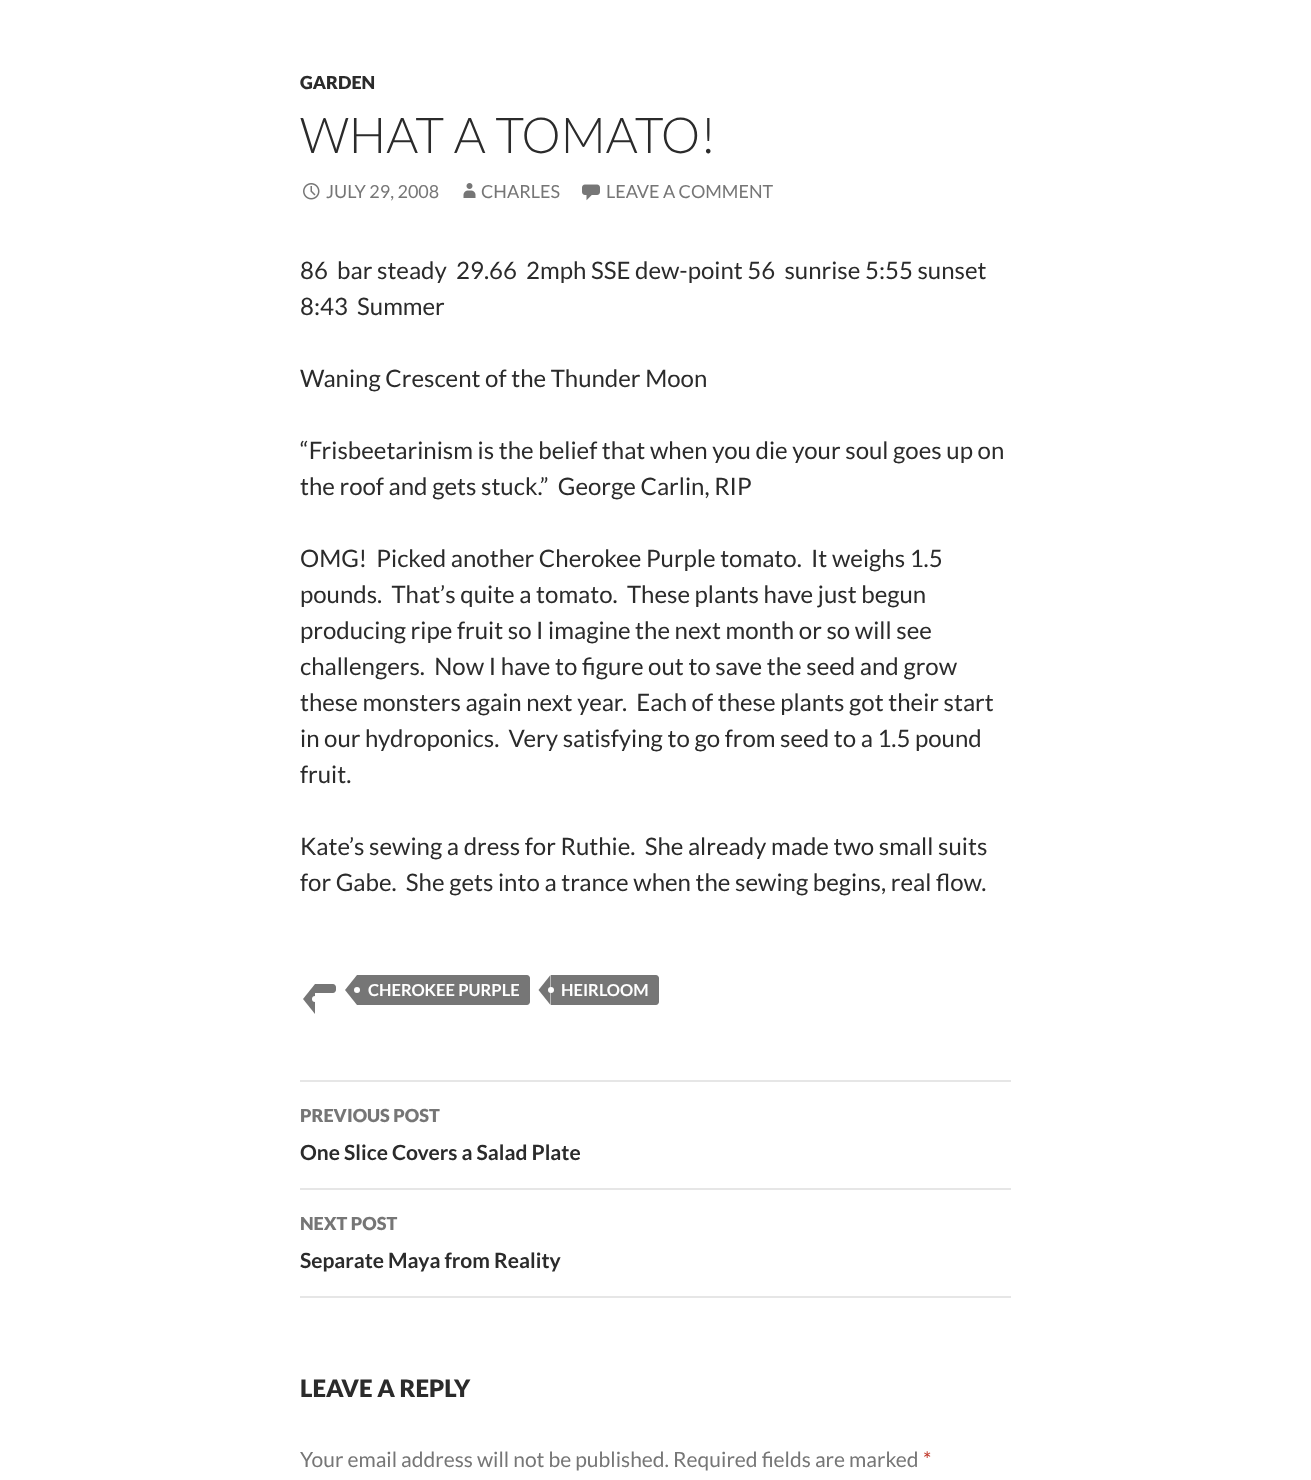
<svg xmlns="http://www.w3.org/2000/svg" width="1311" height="1480">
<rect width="100%" height="100%" fill="#fff"/>
<text x="300" y="89" style="font-family:Lato;font-size:18px;font-weight:900;fill:#2b2b2b">GARDEN</text>
<text x="300" y="153" style="font-family:Lato;font-size:49.5px;font-weight:300;fill:#2b2b2b">WHAT A TOMATO!</text>
<image x="303" y="183" width="17" height="17" href="media/1.png"/>
<text x="326" y="198" style="font-family:Lato;font-size:18px;fill:#767676">JULY 29, 2008</text>
<image x="463" y="183" width="13" height="15" href="media/2.png"/>
<text x="481" y="198" style="font-family:Lato;font-size:18px;fill:#767676">CHARLES</text>
<image x="582" y="184" width="18" height="17" href="media/3.png"/>
<text x="606" y="198" style="font-family:Lato;font-size:18px;fill:#767676">LEAVE A COMMENT</text>
<text x="300" y="279" style="font-family:Lato;font-size:24px;fill:#2b2b2b" xml:space="preserve">86  bar steady  29.66  2mph SSE dew-point 56  sunrise 5:55 sunset</text>
<text x="300" y="315" style="font-family:Lato;font-size:24px;fill:#2b2b2b" xml:space="preserve">8:43  Summer</text>
<text x="300" y="387" style="font-family:Lato;font-size:24px;fill:#2b2b2b">Waning Crescent of the Thunder Moon</text>
<text x="300" y="459" style="font-family:Lato;font-size:24px;fill:#2b2b2b">“Frisbeetarinism is the belief that when you die your soul goes up on</text>
<text x="300" y="495" style="font-family:Lato;font-size:24px;fill:#2b2b2b" xml:space="preserve">the roof and gets stuck.”  George Carlin, RIP</text>
<text x="300" y="567" style="font-family:Lato;font-size:24px;fill:#2b2b2b" xml:space="preserve">OMG!  Picked another Cherokee Purple tomato.  It weighs 1.5</text>
<text x="300" y="603" style="font-family:Lato;font-size:24px;fill:#2b2b2b" xml:space="preserve">pounds.  That’s quite a tomato.  These plants have just begun</text>
<text x="300" y="639" style="font-family:Lato;font-size:24px;fill:#2b2b2b">producing ripe fruit so I imagine the next month or so will see</text>
<text x="300" y="675" style="font-family:Lato;font-size:24px;fill:#2b2b2b" xml:space="preserve">challengers.  Now I have to figure out to save the seed and grow</text>
<text x="300" y="711" style="font-family:Lato;font-size:24px;fill:#2b2b2b" xml:space="preserve">these monsters again next year.  Each of these plants got their start</text>
<text x="300" y="747" style="font-family:Lato;font-size:24px;fill:#2b2b2b" xml:space="preserve">in our hydroponics.  Very satisfying to go from seed to a 1.5 pound</text>
<text x="300" y="783" style="font-family:Lato;font-size:24px;fill:#2b2b2b">fruit.</text>
<text x="300" y="855" style="font-family:Lato;font-size:24px;fill:#2b2b2b" xml:space="preserve">Kate’s sewing a dress for Ruthie.  She already made two small suits</text>
<text x="300" y="891" style="font-family:Lato;font-size:24px;fill:#2b2b2b" xml:space="preserve">for Gabe.  She gets into a trance when the sewing begins, real flow.</text>
<path d="M315 984h18c1.5 0 3 1.5 3 3v3c0 1.5-1.5 3-3 3h-18z" fill="#767676"/>
<path d="M315 984v30l-12-15z" fill="#767676"/>
<circle cx="315" cy="999" r="3" fill="#fff"/>
<path d="M357 975h170c1.5 0 3 1.5 3 3v24c0 1.5-1.5 3-3 3h-170z" fill="#767676"/>
<path d="M357 975v30l-12-15z" fill="#767676"/>
<text x="368" y="996" style="font-family:Lato;font-size:16.5px;font-weight:bold;fill:#fff">CHEROKEE PURPLE</text>
<circle cx="357" cy="990" r="3" fill="#fff"/>
<path d="M551 975h105c1.5 0 3 1.5 3 3v24c0 1.5-1.5 3-3 3h-105z" fill="#767676"/>
<path d="M550.5 975v30l-12-15z" fill="#767676"/>
<text x="561" y="996" style="font-family:Lato;font-size:16.5px;font-weight:bold;fill:#fff">HEIRLOOM</text>
<circle cx="551" cy="990" r="3" fill="#fff"/>
<rect x="300" y="1080" width="711" height="2" fill="#e6e6e6"/>
<rect x="300" y="1188" width="711" height="2" fill="#e6e6e6"/>
<text x="300" y="1122" style="font-family:Lato;font-size:18px;font-weight:900;fill:#767676">PREVIOUS POST</text>
<text x="300" y="1160" style="font-family:Lato;font-size:21px;font-weight:bold;fill:#2b2b2b">One Slice Covers a Salad Plate</text>
<rect x="300" y="1296" width="711" height="2" fill="#e6e6e6"/>
<text x="300" y="1230" style="font-family:Lato;font-size:18px;font-weight:900;fill:#767676">NEXT POST</text>
<text x="300" y="1268" style="font-family:Lato;font-size:21px;font-weight:bold;fill:#2b2b2b">Separate Maya from Reality</text>
<text x="300" y="1397" style="font-family:Lato;font-size:24px;font-weight:900;fill:#2b2b2b">LEAVE A REPLY</text>
<text x="300" y="1467" style="font-family:Lato;font-size:21px;fill:#767676">Your email address will not be published. Required fields are marked</text>
<text x="923" y="1467" style="font-family:Lato;font-size:21px;fill:#c0392b">*</text>
</svg>
